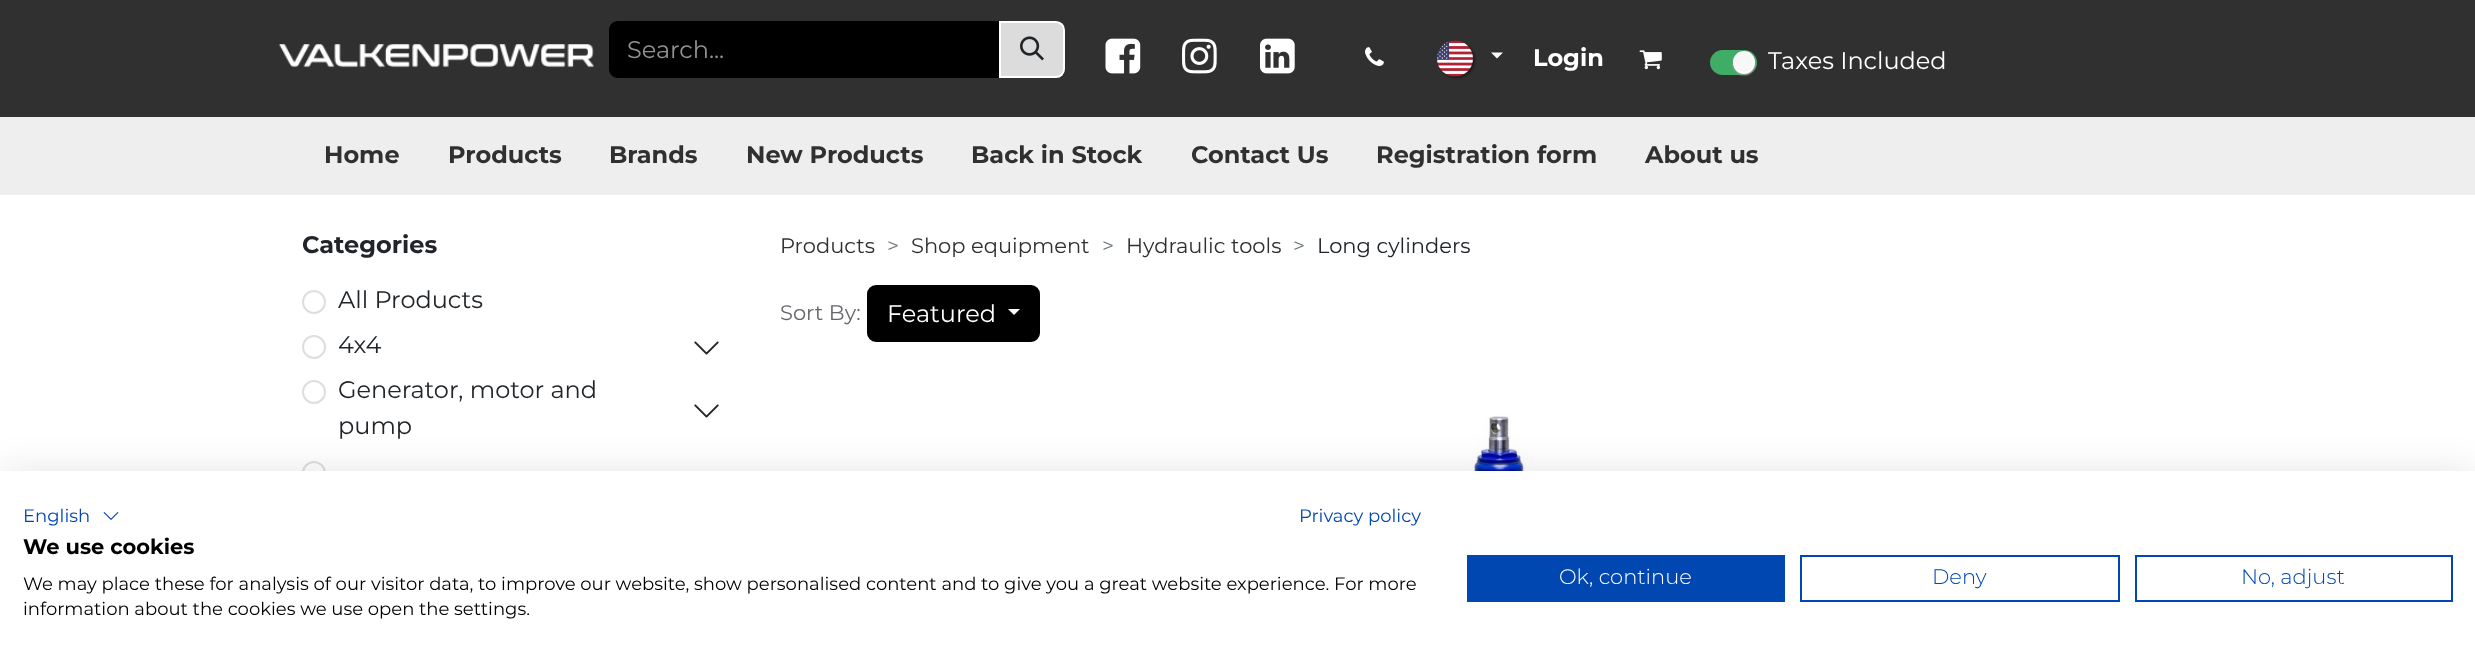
<svg xmlns="http://www.w3.org/2000/svg" width="2475" height="663">
<rect width="100%" height="100%" fill="#fff"/>
<rect width="2475" height="117" fill="#303030"/>
<image x="278" y="44" width="316" height="24" href="media/1.png"/>
<path d="M618 21h383v57h-383c-5 0-9-4-9-9v-39c0-5 4-9 9-9z" fill="#000"/>
<text x="627" y="58" style="font-family:Montserrat;font-size:24px;fill:#909294">Search...</text>
<path d="M1000 22h56c4.5 0 8 3.5 8 8v39c0 4.5-3.5 8-8 8h-56z" fill="#dcdcdc" stroke="#fff" stroke-width="2"/>
<image x="1020" y="36" width="24" height="25" href="media/2.png"/>
<image x="1105" y="38" width="36" height="36" href="media/3.png"/>
<image x="1182" y="38" width="35" height="36" href="media/4.png"/>
<image x="1260" y="38" width="35" height="36" href="media/5.png"/>
<image x="1365" y="47" width="19" height="19" href="media/6.png"/>
<rect x="1439" y="42" width="36" height="36" rx="18" fill="#0000006e" filter="blur(1px)"/>
<image x="1437" y="40" width="36" height="37" href="media/7.png"/>
<path d="M1491 52.5h12l-6 6z" fill="#fff"/>
<text x="1533" y="66" style="font-family:Montserrat;font-size:24px;font-weight:bold;fill:#fff">Login</text>
<image x="1639" y="50" width="23" height="20" href="media/8.png"/>
<rect x="1710" y="50" width="47" height="25" rx="12.5" fill="#40ad67"/>
<rect x="1733" y="53" width="22" height="22" rx="11" fill="#9e9e9e" filter="blur(1px)"/>
<rect x="1734" y="52" width="20" height="21" rx="10" fill="#f7f7f7" stroke="#fff" stroke-width="2"/>
<text x="1768" y="69" style="font-family:Montserrat;font-size:24px;fill:#fff">Taxes Included</text>
<rect y="117" width="2475" height="78" fill="#eee"/>
<text x="324" y="163" style="font-family:Montserrat;font-size:24px;font-weight:bold;fill:#303030">Home</text>
<text x="448" y="163" style="font-family:Montserrat;font-size:24px;font-weight:bold;fill:#303030">Products</text>
<text x="609" y="163" style="font-family:Montserrat;font-size:24px;font-weight:bold;fill:#303030">Brands</text>
<text x="746" y="163" style="font-family:Montserrat;font-size:24px;font-weight:bold;fill:#303030">New Products</text>
<text x="971" y="163" style="font-family:Montserrat;font-size:24px;font-weight:bold;fill:#303030">Back in Stock</text>
<text x="1191" y="163" style="font-family:Montserrat;font-size:24px;font-weight:bold;fill:#303030">Contact Us</text>
<text x="1376" y="163" style="font-family:Montserrat;font-size:24px;font-weight:bold;fill:#303030">Registration form</text>
<text x="1645" y="163" style="font-family:Montserrat;font-size:24px;font-weight:bold;fill:#303030">About us</text>
<text x="302" y="253" style="font-family:Montserrat;font-size:24px;font-weight:bold;fill:#212529">Categories</text>
<circle cx="314" cy="302" r="11" fill="none" stroke="#dededf" stroke-width="2"/>
<text x="338" y="308" style="font-family:Montserrat;font-size:24px;fill:#212529">All Products</text>
<circle cx="314" cy="347" r="11" fill="none" stroke="#dededf" stroke-width="2"/>
<text x="338" y="353" style="font-family:Montserrat;font-size:24px;fill:#212529">4x4</text>
<image x="694" y="341" width="25" height="14" href="media/9.png"/>
<circle cx="314" cy="392" r="11" fill="none" stroke="#dededf" stroke-width="2"/>
<text x="338" y="398" style="font-family:Montserrat;font-size:24px;fill:#212529">Generator, motor and</text>
<text x="338" y="434" style="font-family:Montserrat;font-size:24px;fill:#212529">pump</text>
<image x="694" y="404" width="25" height="14" href="media/9.png"/>
<circle cx="314" cy="473" r="11" fill="none" stroke="#dededf" stroke-width="2"/>
<text x="780" y="253" style="font-family:Montserrat;font-size:21px;fill:#303030">Products</text>
<text x="887" y="253" style="font-family:Montserrat;font-size:21px;fill:#6c757d">&gt;</text>
<text x="911" y="253" style="font-family:Montserrat;font-size:21px;fill:#303030">Shop equipment</text>
<text x="1102" y="253" style="font-family:Montserrat;font-size:21px;fill:#6c757d">&gt;</text>
<text x="1126" y="253" style="font-family:Montserrat;font-size:21px;fill:#303030">Hydraulic tools</text>
<text x="1293" y="253" style="font-family:Montserrat;font-size:21px;fill:#6c757d">&gt;</text>
<text x="1317" y="253" style="font-family:Montserrat;font-size:21px;fill:#212529">Long cylinders</text>
<text x="780" y="320" style="font-family:Montserrat;font-size:21px;fill:#646669">Sort By:</text>
<rect x="868" y="286" width="171" height="55" rx="8" fill="#000" stroke="#000" stroke-width="2"/>
<text x="887" y="322" style="font-family:Montserrat;font-size:24px;fill:#fff">Featured</text>
<path d="M1008 309h12l-6 6z" fill="#fff"/>
<image x="1368" y="412" width="306" height="59" href="media/10.png"/>
<rect y="471" width="2475" height="192" fill="#0000001a" filter="blur(18px)"/>
<rect y="471" width="2475" height="192" fill="#fff"/>
<text x="23" y="522" style="font-family:Montserrat;font-size:18px;fill:#0047b2">English</text>
<image x="103" y="512" width="16" height="8" href="media/11.png"/>
<text x="1299" y="522" style="font-family:Montserrat;font-size:18px;fill:#0047b2">Privacy policy</text>
<text x="23" y="554" style="font-family:Montserrat;font-size:21px;font-weight:bold;fill:#000">We use cookies</text>
<text x="23" y="590" style="font-family:Montserrat;font-size:18px;fill:#000">We may place these for analysis of our visitor data, to improve our website, show personalised content and to give you a great website experience. For more</text>
<text x="23" y="615" style="font-family:Montserrat;font-size:18px;fill:#000">information about the cookies we use open the settings.</text>
<rect x="1467" y="555" width="318" height="47" fill="#0047b2"/>
<text x="1559" y="584" style="font-family:Montserrat;font-size:21px;font-weight:300;fill:#fff">Ok, continue</text>
<rect x="1801" y="556" width="318" height="45" fill="none" stroke="#0047b2" stroke-width="2"/>
<text x="1932" y="584" style="font-family:Montserrat;font-size:21px;font-weight:300;fill:#0047b2">Deny</text>
<rect x="2136" y="556" width="316" height="45" fill="none" stroke="#0047b2" stroke-width="2"/>
<text x="2241" y="584" style="font-family:Montserrat;font-size:21px;font-weight:300;fill:#0047b2">No, adjust</text>
</svg>
